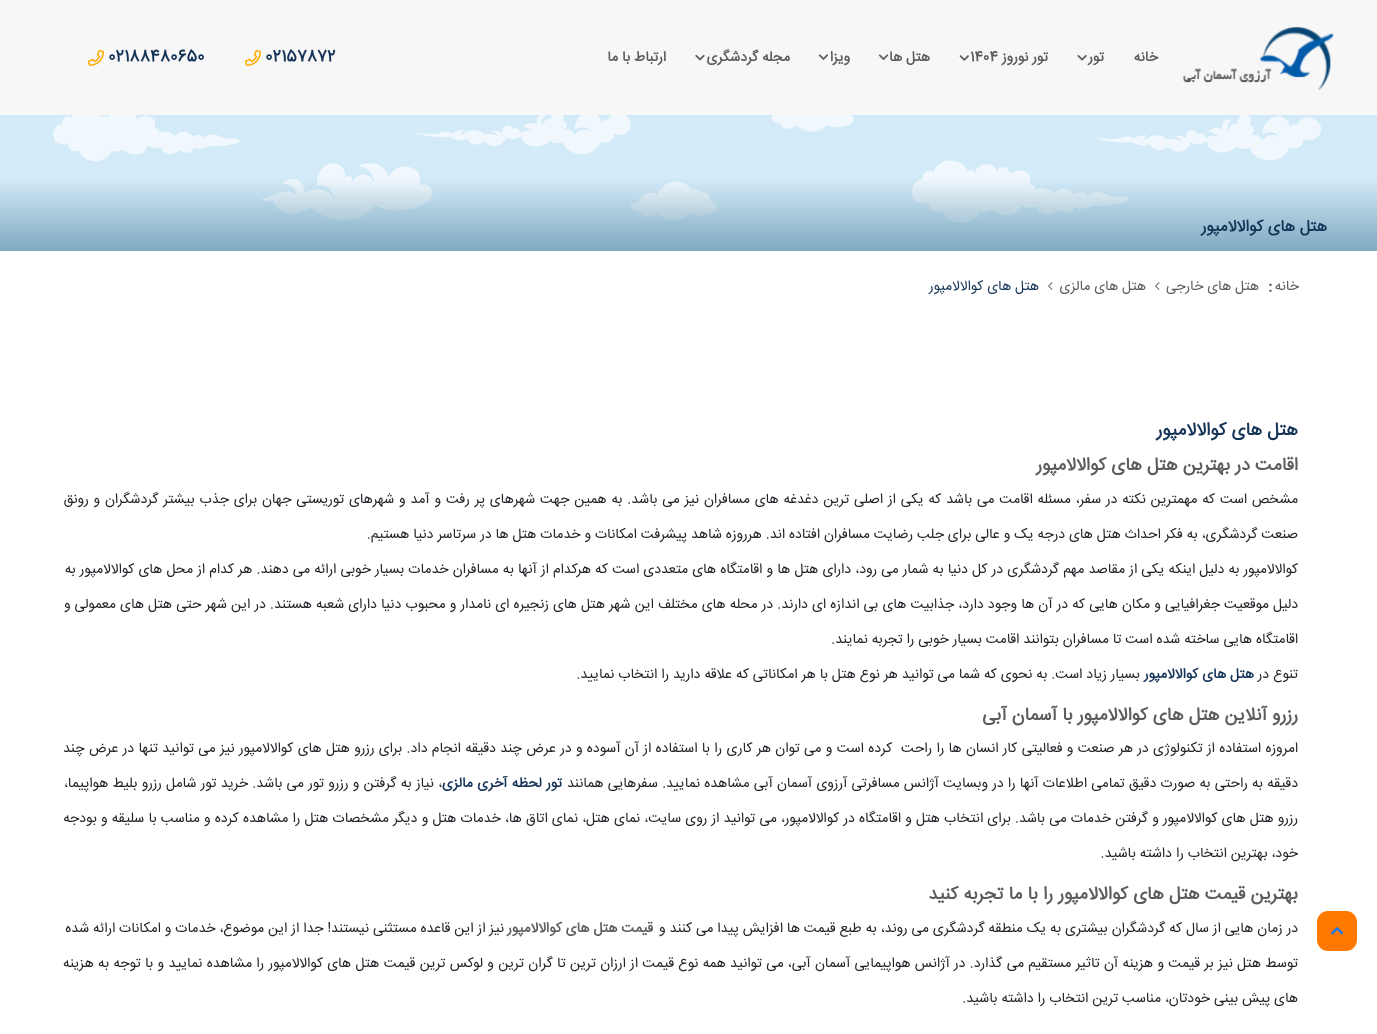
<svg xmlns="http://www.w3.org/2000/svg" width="1377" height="1034">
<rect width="100%" height="100%" fill="#fff"/>
<rect width="1377" height="115" fill="#f7f7f7"/>
<image x="1182" y="27" width="152" height="63" href="media/1.png"/>
<text x="1158" y="61" style="font-family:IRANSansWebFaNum;font-size:14px;font-weight:bold;direction:rtl;fill:#5c5c5c">خانه</text>
<text x="1104" y="61" style="font-family:IRANSansWebFaNum;font-size:14px;font-weight:bold;direction:rtl;fill:#5c5c5c">تور</text>
<image x="1077" y="55" width="10" height="6" href="media/2.png"/>
<text x="1048" y="61" style="font-family:IRANSansWebFaNum;font-size:14px;font-weight:bold;direction:rtl;fill:#5c5c5c">تور نوروز</text>
<text x="970" y="61" style="font-family:IRANSansWebFaNum;font-size:14px;font-weight:bold;fill:#5c5c5c">1404</text>
<image x="959" y="55" width="10" height="6" href="media/3.png"/>
<text x="930" y="61" style="font-family:IRANSansWebFaNum;font-size:14px;font-weight:bold;direction:rtl;fill:#5c5c5c">هتل ها</text>
<image x="878" y="54" width="11" height="6" href="media/4.png"/>
<text x="850" y="61" style="font-family:IRANSansWebFaNum;font-size:14px;font-weight:bold;direction:rtl;fill:#5c5c5c">ویزا</text>
<image x="818" y="54" width="11" height="6" href="media/5.png"/>
<text x="790" y="61" style="font-family:IRANSansWebFaNum;font-size:14px;font-weight:bold;direction:rtl;fill:#5c5c5c">مجله گردشگری</text>
<image x="695" y="54" width="10" height="7" href="media/6.png"/>
<text x="666" y="61" style="font-family:IRANSansWebFaNum;font-size:14px;font-weight:bold;direction:rtl;fill:#5c5c5c">ارتباط با ما</text>
<text x="265" y="61" style="font-family:IRANSansWebFaNum;font-size:16px;font-weight:bold;fill:#153357">02157872</text>
<image x="245" y="50" width="16" height="16" href="media/7.png"/>
<text x="108" y="61" style="font-family:IRANSansWebFaNum;font-size:16px;font-weight:bold;fill:#153357">02188480650</text>
<image x="88" y="50" width="16" height="16" href="media/7.png"/>
<image x="0" y="115" width="1377" height="136" href="media/8.png"/>
<text x="1327" y="231" style="font-family:IRANSansWebFaNum;font-size:16px;font-weight:bold;direction:rtl;fill:#153357">هتل های کوالالامپور</text>
<rect x="1317" y="911" width="40" height="40" rx="11" fill="#ff7900"/>
<image x="1331" y="927" width="12" height="8" href="media/9.png"/>
<text x="1299" y="290" style="font-family:IRANSansWebFaNum;font-size:14px;direction:rtl;fill:#5c5c5c">خانه</text>
<text x="1268" y="291" style="font-family:IRANSansWebFaNum;font-size:17px;font-weight:bold;fill:#5c5c5c">:</text>
<text x="1259" y="290" style="font-family:IRANSansWebFaNum;font-size:14px;direction:rtl;fill:#5c5c5c">هتل های خارجی</text>
<image x="1155" y="282" width="5" height="8" href="media/10.png"/>
<text x="1146" y="290" style="font-family:IRANSansWebFaNum;font-size:14px;direction:rtl;fill:#5c5c5c">هتل های مالزی</text>
<image x="1048" y="282" width="5" height="8" href="media/10.png"/>
<text x="1039" y="290" style="font-family:IRANSansWebFaNum;font-size:14px;direction:rtl;fill:#153357">هتل های کوالالامپور</text>
<text x="1298" y="435" style="font-family:IRANSansWebFaNum;font-size:18px;font-weight:bold;direction:rtl;fill:#153357">هتل های کوالالامپور</text>
<text x="1298" y="470" style="font-family:IRANSansWebFaNum;font-size:18px;font-weight:bold;direction:rtl;fill:#5c5c5c">اقامت در بهترین هتل های کوالالامپور</text>
<text x="1298" y="503" word-spacing="0.9" style="font-family:IRANSansWebFaNum;font-size:14px;direction:rtl;fill:#212529">مشخص است که مهمترین نکته در سفر، مسئله اقامت می باشد که یکی از اصلی ترین دغدغه های مسافران نیز می باشد. به همین جهت شهرهای پر رفت و آمد و شهرهای توریستی جهان برای جذب بیشتر گردشگران و رونق</text>
<text x="1298" y="538" style="font-family:IRANSansWebFaNum;font-size:14px;direction:rtl;fill:#212529">صنعت گردشگری، به فکر احداث هتل های درجه یک و عالی برای جلب رضایت مسافران افتاده اند. هرروزه شاهد پیشرفت امکانات و خدمات هتل ها در سرتاسر دنیا هستیم.</text>
<text x="1298" y="573" word-spacing="0.2" style="font-family:IRANSansWebFaNum;font-size:14px;direction:rtl;fill:#212529">کوالالامپور به دلیل اینکه یکی از مقاصد مهم گردشگری در کل دنیا به شمار می رود، دارای هتل ها و اقامتگاه های متعددی است که هرکدام از آنها به مسافران خدمات بسیار خوبی ارائه می دهند. هر کدام از محل های کوالالامپور به</text>
<text x="1298" y="608" word-spacing="0.2" style="font-family:IRANSansWebFaNum;font-size:14px;direction:rtl;fill:#212529">دلیل موقعیت جغرافیایی و مکان هایی که در آن ها وجود دارد، جذابیت های بی اندازه ای دارند. در محله های مختلف این شهر هتل های زنجیره ای نامدار و محبوب دنیا دارای شعبه هستند. در این شهر حتی هتل های معمولی و</text>
<text x="1298" y="643" style="font-family:IRANSansWebFaNum;font-size:14px;direction:rtl;fill:#212529">اقامتگاه هایی ساخته شده است تا مسافران بتوانند اقامت بسیار خوبی را تجربه نمایند.</text>
<text x="1298" y="678" style="font-family:IRANSansWebFaNum;font-size:14px;direction:rtl;fill:#212529">تنوع در</text>
<text x="1254" y="678" style="font-family:IRANSansWebFaNum;font-size:14px;font-weight:bold;direction:rtl;fill:#153357">هتل های کوالالامپور</text>
<text x="1140" y="678" style="font-family:IRANSansWebFaNum;font-size:14px;direction:rtl;fill:#212529">بسیار زیاد است. به نحوی که شما می توانید هر نوع هتل با هر امکاناتی که علاقه دارید را انتخاب نمایید.</text>
<text x="1298" y="720" style="font-family:IRANSansWebFaNum;font-size:18px;font-weight:bold;direction:rtl;fill:#5c5c5c">رزرو آنلاین هتل های کوالالامپور با آسمان آبی</text>
<text x="1298" y="752" word-spacing="0.4" style="font-family:IRANSansWebFaNum;font-size:14px;direction:rtl;fill:#212529" xml:space="preserve">امروزه استفاده از تکنولوژی در هر صنعت و فعالیتی کار انسان ها را راحت  کرده است و می توان هر کاری را با استفاده از آن آسوده و در عرض چند دقیقه انجام داد. برای رزرو هتل های کوالالامپور نیز می توانید تنها در عرض چند</text>
<text x="1298" y="787" word-spacing="0.3" style="font-family:IRANSansWebFaNum;font-size:14px;direction:rtl;fill:#212529">دقیقه به راحتی به صورت دقیق تمامی اطلاعات آنها را در وبسایت آژانس مسافرتی آرزوی آسمان آبی مشاهده نمایید. سفرهایی همانند</text>
<text x="562" y="787" word-spacing="0.5" style="font-family:IRANSansWebFaNum;font-size:14px;font-weight:bold;direction:rtl;fill:#153357">تور لحظه آخری مالزی</text>
<text x="442" y="787" word-spacing="0.3" style="font-family:IRANSansWebFaNum;font-size:14px;direction:rtl;fill:#212529">، نیاز به گرفتن و رزرو تور می باشد. خرید تور شامل رزرو بلیط هواپیما،</text>
<text x="1298" y="822" word-spacing="0.25" style="font-family:IRANSansWebFaNum;font-size:14px;direction:rtl;fill:#212529">رزرو هتل های کوالالامپور و گرفتن خدمات می باشد. برای انتخاب هتل و اقامتگاه در کوالالامپور، می توانید از روی سایت، نمای هتل، نمای اتاق ها، خدمات هتل و دیگر مشخصات هتل را مشاهده کرده و مناسب با سلیقه و بودجه</text>
<text x="1298" y="857" style="font-family:IRANSansWebFaNum;font-size:14px;direction:rtl;fill:#212529">خود، بهترین انتخاب را داشته باشید.</text>
<text x="1298" y="899" style="font-family:IRANSansWebFaNum;font-size:18px;font-weight:bold;direction:rtl;fill:#5c5c5c">بهترین قیمت هتل های کوالالامپور را با ما تجربه کنید</text>
<text x="1298" y="932" style="font-family:IRANSansWebFaNum;font-size:14px;direction:rtl;fill:#212529">در زمان هایی از سال که گردشگران بیشتری به یک منطقه گردشگری می روند، به طبع قیمت ها افزایش پیدا می کنند و</text>
<text x="653" y="932" style="font-family:IRANSansWebFaNum;font-size:14px;font-weight:bold;direction:rtl;fill:#5c5c5c">قیمت هتل های کوالالامپور</text>
<text x="504" y="932" style="font-family:IRANSansWebFaNum;font-size:14px;direction:rtl;fill:#212529">نیز از این قاعده مستثنی نیستند! جدا از این موضوع، خدمات و امکانات ارائه شده</text>
<text x="1298" y="967" word-spacing="0.4" style="font-family:IRANSansWebFaNum;font-size:14px;direction:rtl;fill:#212529">توسط هتل نیز بر قیمت و هزینه آن تاثیر مستقیم می گذارد. در آژانس هواپیمایی آسمان آبی، می توانید همه نوع قیمت از ارزان ترین تا گران ترین و لوکس ترین قیمت هتل های کوالالامپور را مشاهده نمایید و با توجه به هزینه</text>
<text x="1298" y="1002" style="font-family:IRANSansWebFaNum;font-size:14px;direction:rtl;fill:#212529">های پیش بینی خودتان، مناسب ترین انتخاب را داشته باشید.</text>
</svg>
